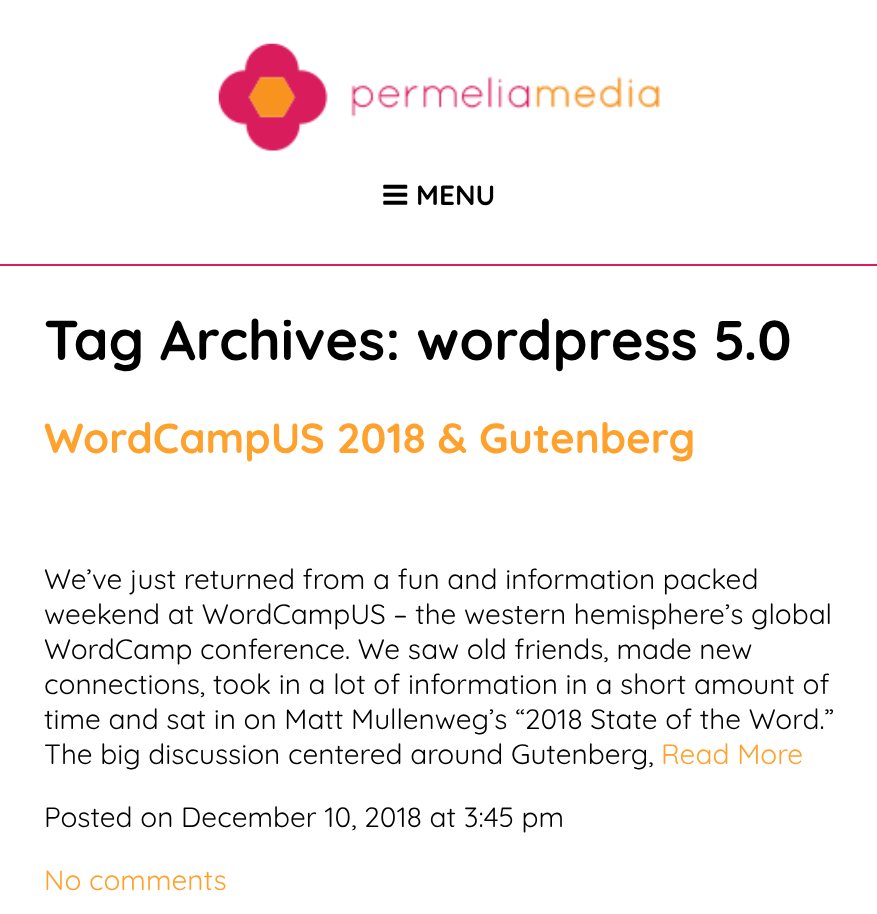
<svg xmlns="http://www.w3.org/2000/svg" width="877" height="914">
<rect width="100%" height="100%" fill="#fff"/>
<rect y="264" width="877" height="2" fill="#d91c5c"/>
<image x="218" y="43" width="442" height="108" href="media/1.png"/>
<image x="383" y="184" width="25" height="21" href="media/2.png"/>
<text x="416" y="205" style="font-family:Quicksand;font-size:28px;font-weight:bold;fill:#000">MENU</text>
<text x="44" y="360" style="font-family:Quicksand;font-size:56px;font-weight:bold;fill:#000">Tag Archives: wordpress 5.0</text>
<text x="44" y="453" style="font-family:Quicksand;font-size:42px;font-weight:bold;fill:#ffa12d">WordCampUS 2018 &amp; Gutenberg</text>
<text x="44" y="589" style="font-family:Quicksand;font-size:28px;fill:#000">We’ve just returned from a fun and information packed</text>
<text x="44" y="624" style="font-family:Quicksand;font-size:28px;fill:#000">weekend at WordCampUS – the western hemisphere’s global</text>
<text x="44" y="659" style="font-family:Quicksand;font-size:28px;fill:#000">WordCamp conference. We saw old friends, made new</text>
<text x="44" y="694" style="font-family:Quicksand;font-size:28px;fill:#000">connections, took in a lot of information in a short amount of</text>
<text x="44" y="729" style="font-family:Quicksand;font-size:28px;fill:#000">time and sat in on Matt Mullenweg’s “2018 State of the Word.”</text>
<text x="44" y="764" style="font-family:Quicksand;font-size:28px;fill:#000">The big discussion centered around Gutenberg,</text>
<text x="661" y="764" style="font-family:Quicksand;font-size:28px;fill:#ffa12d">Read More</text>
<text x="44" y="827" style="font-family:Quicksand;font-size:28px;fill:#000">Posted on December 10, 2018 at 3:45 pm</text>
<text x="44" y="890" style="font-family:Quicksand;font-size:28px;fill:#ffa12d">No comments</text>
</svg>
